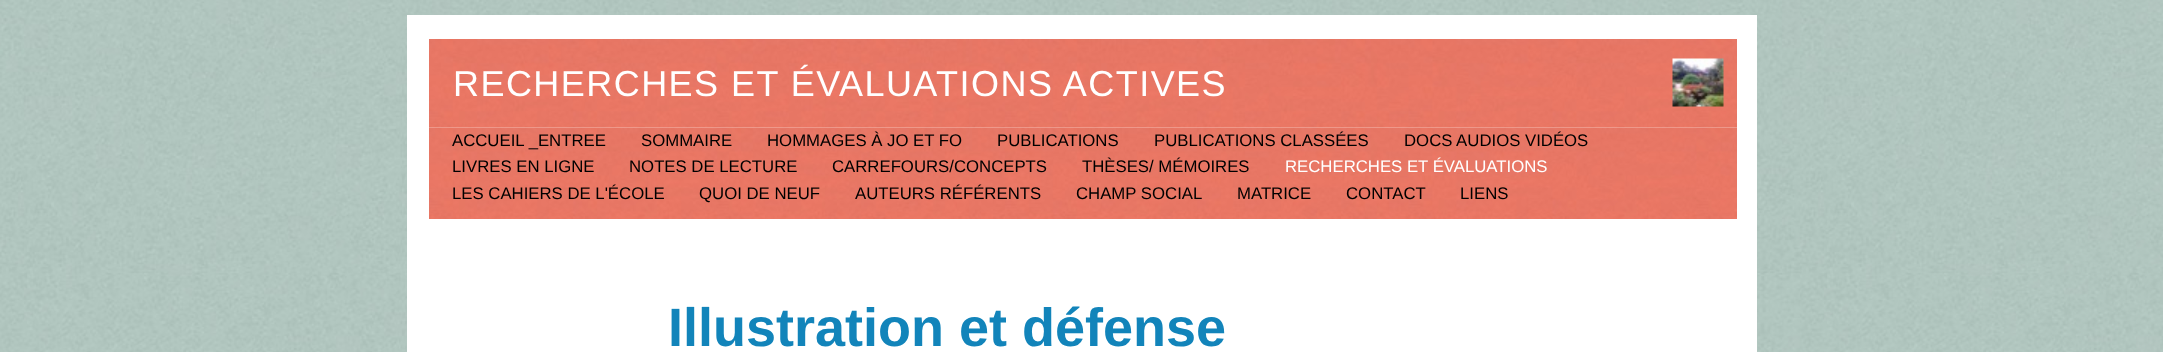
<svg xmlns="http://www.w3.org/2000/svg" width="2163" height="352">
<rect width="100%" height="100%" fill="#fff"/>
<image x="0" y="0" width="2163" height="352" href="media/1.png"/>
<rect x="407" y="15" width="1350" height="337" fill="#fff"/>
<image x="429" y="127" width="1308" height="92" href="media/4.png"/>
<image x="429" y="39" width="1308" height="89" href="media/2.png"/>
<text x="453" y="96" style="font-family:Liberation Sans;font-size:36px;letter-spacing:1.45px;fill:#fff">RECHERCHES ET ÉVALUATIONS ACTIVES</text>
<image x="1672" y="58" width="52" height="49" href="media/3.png"/>
<text x="452" y="146" style="font-family:Liberation Sans;font-size:16.75px;fill:#000">ACCUEIL _ENTREE</text>
<text x="641" y="146" style="font-family:Liberation Sans;font-size:16.75px;fill:#000">SOMMAIRE</text>
<text x="767" y="146" style="font-family:Liberation Sans;font-size:16.75px;fill:#000">HOMMAGES À JO ET FO</text>
<text x="997" y="146" style="font-family:Liberation Sans;font-size:16.75px;fill:#000">PUBLICATIONS</text>
<text x="1154" y="146" style="font-family:Liberation Sans;font-size:16.75px;fill:#000">PUBLICATIONS CLASSÉES</text>
<text x="1404" y="146" style="font-family:Liberation Sans;font-size:16.75px;fill:#000">DOCS AUDIOS VIDÉOS</text>
<text x="452" y="172" style="font-family:Liberation Sans;font-size:16.75px;fill:#000">LIVRES EN LIGNE</text>
<text x="629" y="172" style="font-family:Liberation Sans;font-size:16.75px;fill:#000">NOTES DE LECTURE</text>
<text x="832" y="172" style="font-family:Liberation Sans;font-size:16.75px;fill:#000">CARREFOURS/CONCEPTS</text>
<text x="1082" y="172" style="font-family:Liberation Sans;font-size:16.75px;fill:#000">THÈSES/ MÉMOIRES</text>
<text x="1285" y="172" style="font-family:Liberation Sans;font-size:16.75px;fill:#fff">RECHERCHES ET ÉVALUATIONS</text>
<text x="452" y="199" style="font-family:Liberation Sans;font-size:16.75px;fill:#000">LES CAHIERS DE L'ÉCOLE</text>
<text x="699" y="199" style="font-family:Liberation Sans;font-size:16.75px;fill:#000">QUOI DE NEUF</text>
<text x="855" y="199" style="font-family:Liberation Sans;font-size:16.75px;fill:#000">AUTEURS RÉFÉRENTS</text>
<text x="1076" y="199" style="font-family:Liberation Sans;font-size:16.75px;fill:#000">CHAMP SOCIAL</text>
<text x="1237" y="199" style="font-family:Liberation Sans;font-size:16.75px;fill:#000">MATRICE</text>
<text x="1346" y="199" style="font-family:Liberation Sans;font-size:16.75px;fill:#000">CONTACT</text>
<text x="1460" y="199" style="font-family:Liberation Sans;font-size:16.75px;fill:#000">LIENS</text>
<text x="668" y="346" style="font-family:Liberation Sans;font-size:54px;font-weight:bold;fill:#1284ba">Illustration et défense</text>
</svg>
